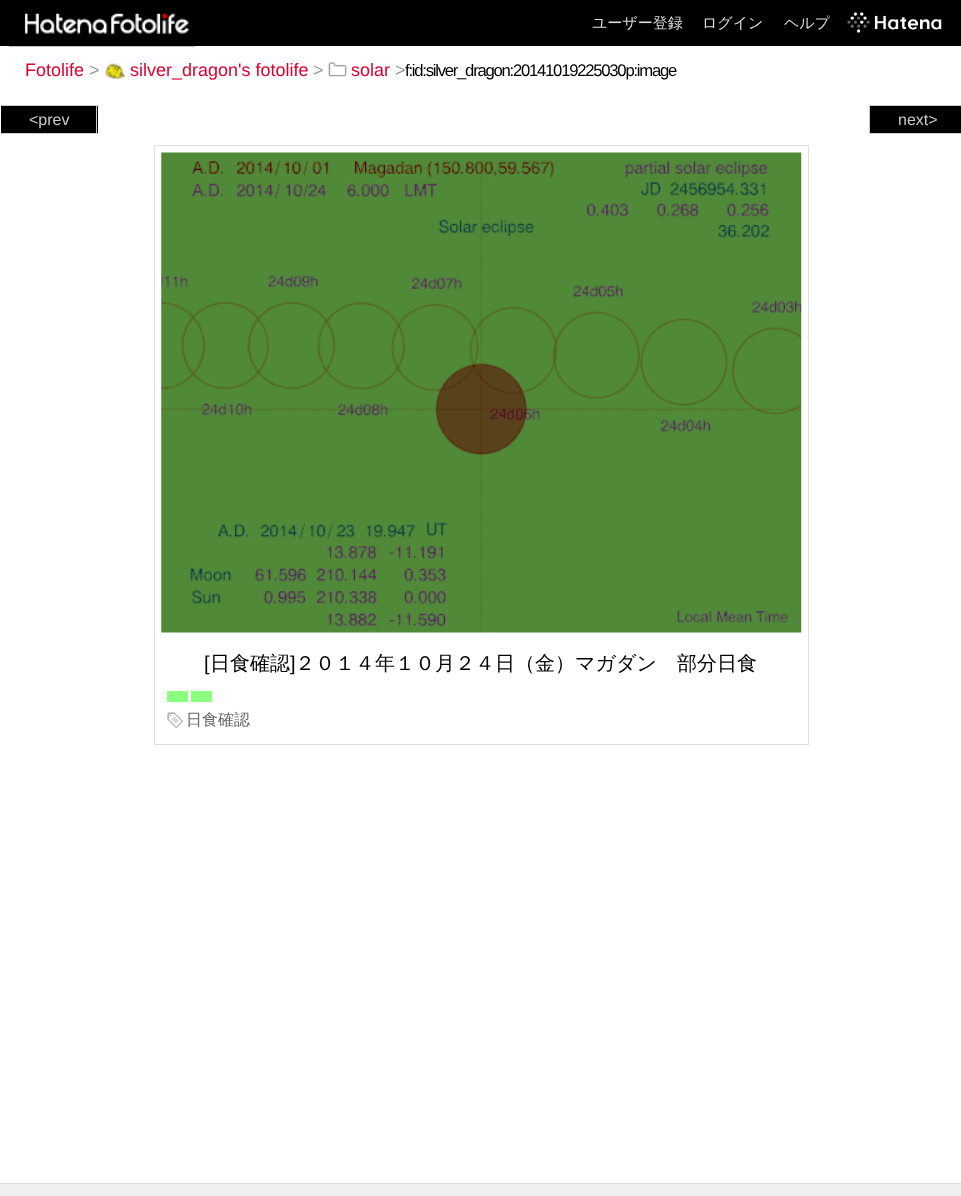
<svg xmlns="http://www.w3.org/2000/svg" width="961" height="1196">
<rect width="100%" height="100%" fill="#efefef"/>
<rect width="961" height="46" fill="#000"/>
<rect y="46" width="961" height="1137" fill="#fff"/>
<image x="8" y="13" width="104" height="34" href="media/1.png"/>
<image x="111" y="13" width="84" height="34" href="media/2.png"/>
<text x="592" y="28" style="font-family:WenQuanYi Zen Hei;font-size:15px;font-weight:500;fill:#ddd">ユーザー登録</text>
<text x="702" y="28" style="font-family:WenQuanYi Zen Hei;font-size:15px;font-weight:500;fill:#ddd">ログイン</text>
<text x="784" y="28" style="font-family:WenQuanYi Zen Hei;font-size:15px;font-weight:500;fill:#ddd">ヘルプ</text>
<image x="847" y="12" width="95" height="21" href="media/3.png"/>
<text x="25" y="76" style="font-family:Liberation Sans;font-size:18px;fill:#de002f">Fotolife</text>
<text x="89" y="76" style="font-family:Liberation Sans;font-size:18px;fill:#999">&gt;</text>
<image x="105" y="63" width="20" height="17" href="media/4.png"/>
<text x="130" y="76" style="font-family:Liberation Sans;font-size:18px;fill:#de002f">silver_dragon's fotolife</text>
<text x="313" y="76" style="font-family:Liberation Sans;font-size:18px;fill:#999">&gt;</text>
<image x="328" y="62" width="19" height="15" href="media/5.png"/>
<text x="351" y="76" style="font-family:Liberation Sans;font-size:18px;fill:#de002f">solar</text>
<text x="395" y="76" style="font-family:Liberation Sans;font-size:18px;fill:#999">&gt;</text>
<text x="405" y="76" style="font-family:Liberation Sans;font-size:16.7px;letter-spacing:-1.25px;fill:#000">f:id:silver_dragon:20141019225030p:image</text>
<rect y="1183" width="961" height="1" fill="#dedede"/>
<rect x="1" y="106" width="97" height="27" fill="#000"/>
<rect x="1" y="105" width="97" height="1" fill="#ccc"/>
<rect x="96" y="105" width="1" height="29" fill="#ccc"/>
<rect x="1" y="133" width="97" height="1" fill="#ccc"/>
<text x="29" y="125" style="font-family:Liberation Sans;font-size:16px;fill:#ccc">&lt;prev</text>
<rect x="870" y="106" width="91" height="27" fill="#000"/>
<rect x="869" y="105" width="92" height="1" fill="#ccc"/>
<rect x="869" y="133" width="92" height="1" fill="#ccc"/>
<rect x="869" y="105" width="1" height="29" fill="#ccc"/>
<text x="898" y="125" style="font-family:Liberation Sans;font-size:16px;fill:#ccc">next&gt;</text>
<rect x="154.5" y="145.5" width="654" height="599" fill="none" stroke="#dedede"/>
<image x="161" y="152" width="641" height="481" href="media/6.png"/>
<text x="204" y="670" style="font-family:Liberation Sans;font-size:20px;fill:#000">[</text>
<text x="210" y="670" style="font-family:WenQuanYi Zen Hei;font-size:20px;font-weight:500;fill:#000">日食確認</text>
<text x="290" y="670" style="font-family:Liberation Sans;font-size:20px;fill:#000">]</text>
<text x="295" y="670" style="font-family:WenQuanYi Zen Hei;font-size:20px;font-weight:500;fill:#000">２０１４年１０月２４日（金）マガダン　部分日食</text>
<rect x="167" y="691" width="21" height="11" fill="#8aff80"/>
<rect x="191" y="691" width="21" height="11" fill="#8aff80"/>
<image x="167" y="712" width="16" height="16" href="media/7.png"/>
<text x="186" y="725" style="font-family:WenQuanYi Zen Hei;font-size:16px;font-weight:500;fill:#666">日食確認</text>
</svg>
